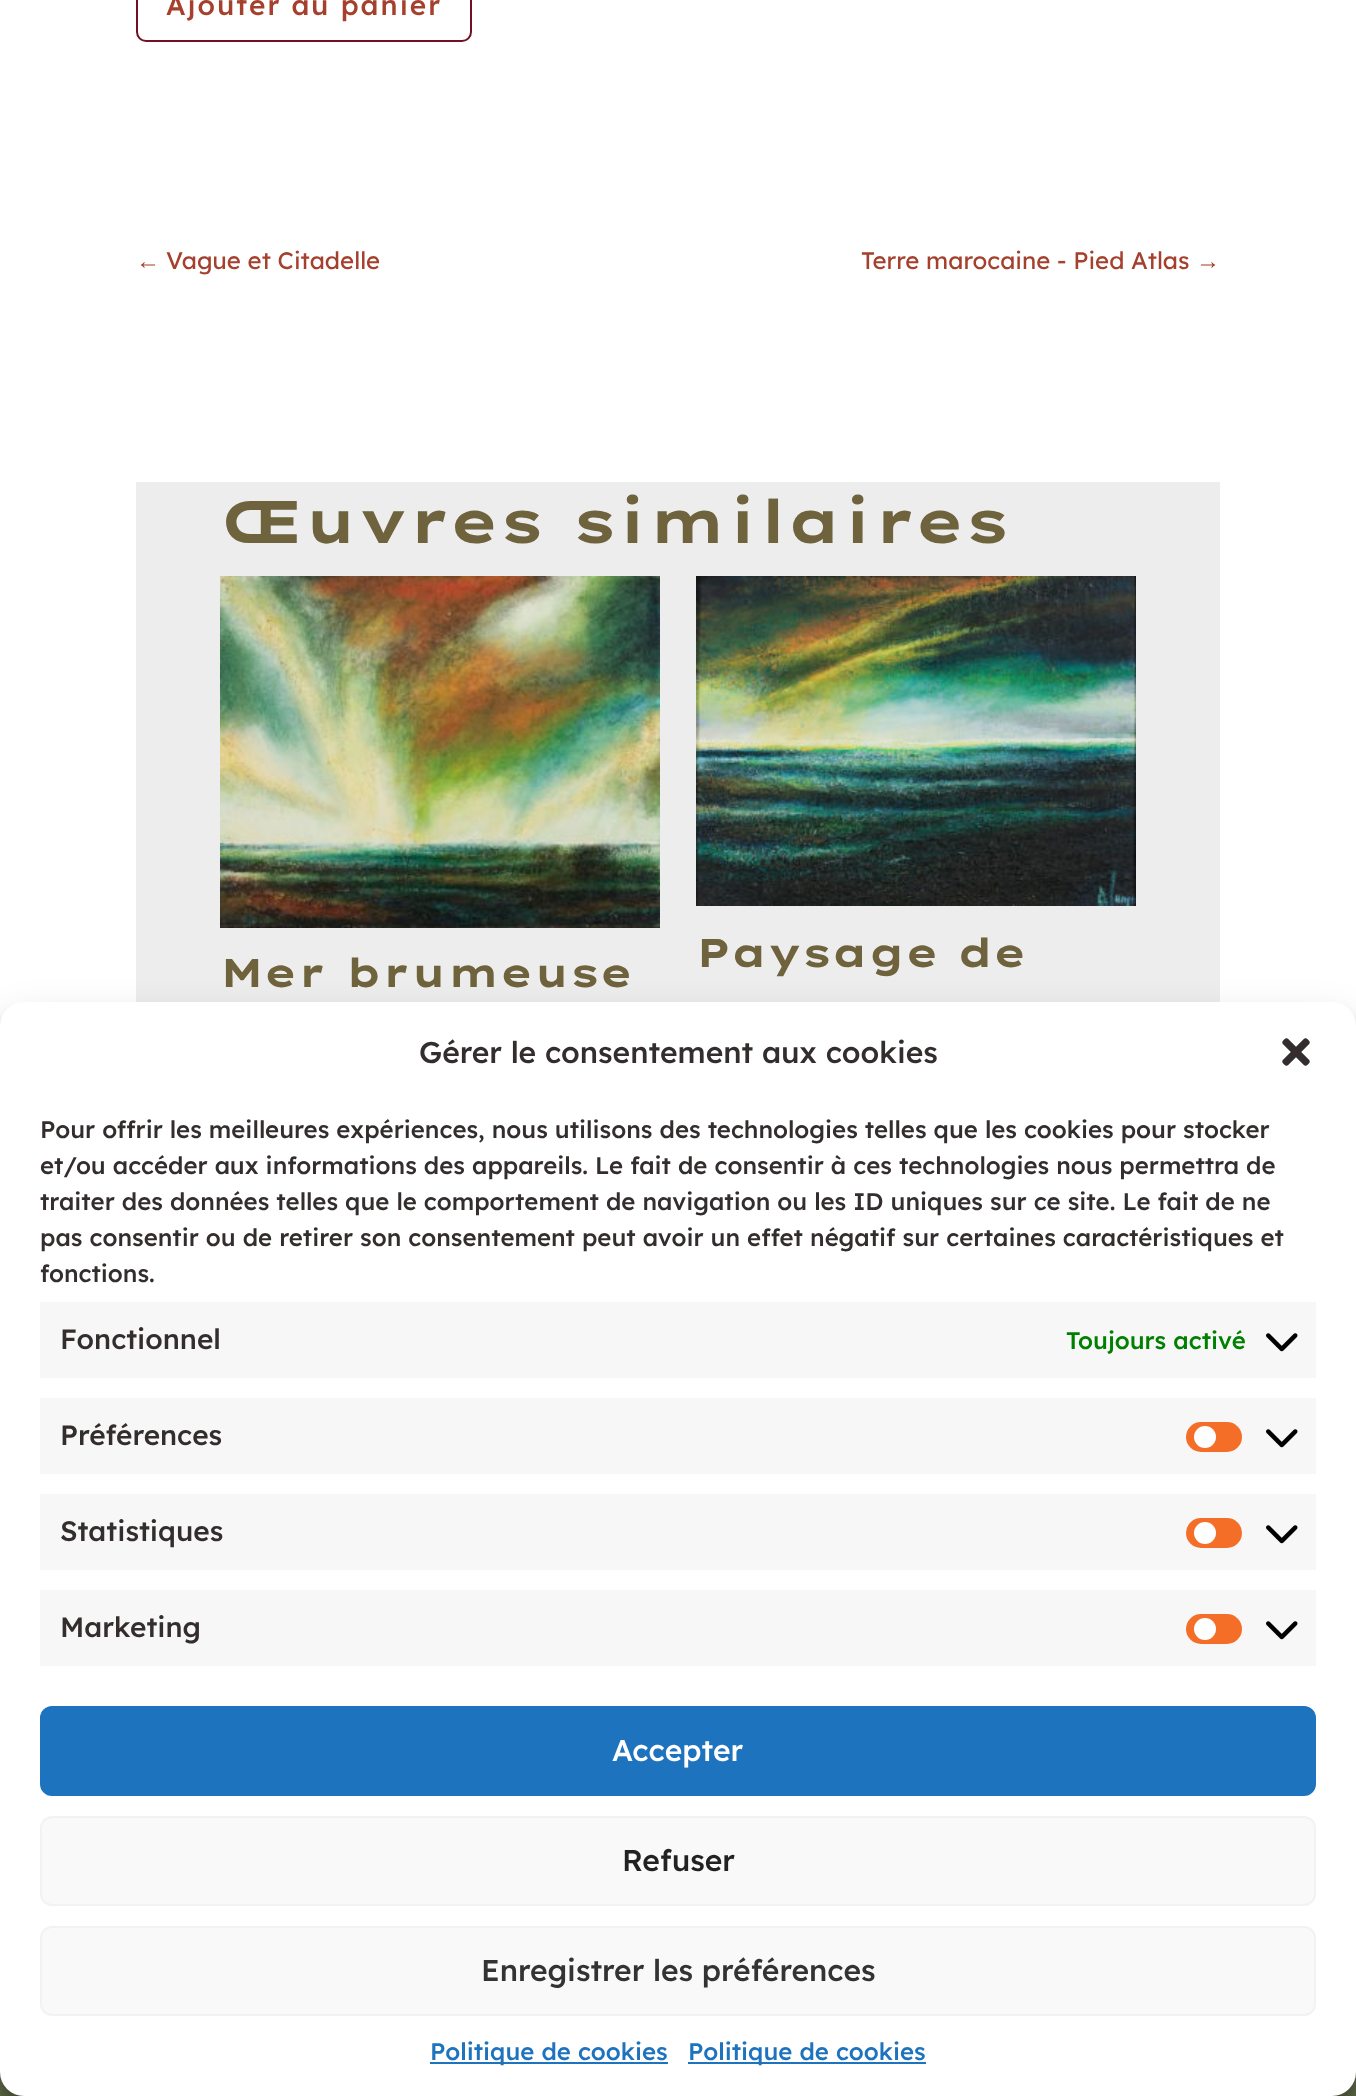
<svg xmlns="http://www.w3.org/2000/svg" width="1356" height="2096">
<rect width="100%" height="100%" fill="#fff"/>
<rect x="137" y="-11" width="334" height="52" rx="9" fill="none" stroke="#721121" stroke-width="2"/>
<text x="166" y="15" style="font-family:Lexend Deca;font-size:28px;font-weight:500;letter-spacing:2px;fill:#a5402d">Ajouter au panier</text>
<text x="136" y="269" style="font-family:Liberation Sans;font-size:24px;fill:#a5402d">←</text>
<text x="166" y="269" style="font-family:Lexend Deca;font-size:24px;fill:#a5402d">Vague et Citadelle</text>
<text x="861" y="269" style="font-family:Lexend Deca;font-size:24px;fill:#a5402d">Terre marocaine - Pied Atlas</text>
<text x="1196" y="269" style="font-family:Liberation Sans;font-size:24px;fill:#a5402d">→</text>
<rect x="136" y="482" width="1084" height="520" fill="#ededed"/>
<text x="220" y="543" style="font-family:Lexend Peta;font-size:60px;font-weight:bold;fill:#6e633d">Œuvres similaires</text>
<image x="220" y="576" width="440" height="352" href="media/1.png"/>
<text x="220" y="987" style="font-family:Lexend Peta;font-size:40px;font-weight:bold;fill:#6e633d">Mer brumeuse</text>
<image x="696" y="576" width="440" height="330" href="media/2.png"/>
<text x="696" y="967" style="font-family:Lexend Peta;font-size:40px;font-weight:bold;fill:#6e633d">Paysage de</text>
<rect y="2072" width="1356" height="24" fill="#646f4b"/>
<rect y="1014" width="1356" height="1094" rx="24" fill="#0000003b" filter="blur(6px)"/>
<rect y="1022" width="1356" height="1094" rx="24" fill="#00000030" filter="blur(20px)"/>
<rect y="1002" width="1356" height="1094" rx="24" fill="#fff"/>
<text x="419" y="1063" style="font-family:Lexend Deca;font-size:30px;font-weight:500;fill:#332d2d">Gérer le consentement aux cookies</text>
<image x="1282" y="1038" width="28" height="28" href="media/3.png"/>
<text x="40" y="1138" style="font-family:Lexend Deca;font-size:24px;font-weight:500;fill:#332d2d">Pour offrir les meilleures expériences, nous utilisons des technologies telles que les cookies pour stocker</text>
<text x="40" y="1174" style="font-family:Lexend Deca;font-size:24px;font-weight:500;fill:#332d2d">et/ou accéder aux informations des appareils. Le fait de consentir à ces technologies nous permettra de</text>
<text x="40" y="1210" style="font-family:Lexend Deca;font-size:24px;font-weight:500;fill:#332d2d">traiter des données telles que le comportement de navigation ou les ID uniques sur ce site. Le fait de ne</text>
<text x="40" y="1246" style="font-family:Lexend Deca;font-size:24px;font-weight:500;fill:#332d2d">pas consentir ou de retirer son consentement peut avoir un effet négatif sur certaines caractéristiques et</text>
<text x="40" y="1282" style="font-family:Lexend Deca;font-size:24px;font-weight:500;fill:#332d2d">fonctions.</text>
<rect x="40" y="1302" width="1276" height="76" fill="#f7f7f7"/>
<text x="60" y="1349" style="font-family:Lexend Deca;font-size:28px;font-weight:500;fill:#332d2d">Fonctionnel</text>
<text x="1066" y="1349" style="font-family:Lexend Deca;font-size:24px;font-weight:500;fill:#008000">Toujours activé</text>
<image x="1266" y="1333" width="32" height="19" href="media/4.png"/>
<rect x="40" y="1398" width="1276" height="76" fill="#f7f7f7"/>
<text x="60" y="1445" style="font-family:Lexend Deca;font-size:28px;font-weight:500;fill:#332d2d">Préférences</text>
<rect x="1186" y="1422" width="56" height="30" rx="15" fill="#f56e28"/>
<circle cx="1205" cy="1437" r="11" fill="#fff"/>
<image x="1266" y="1429" width="32" height="19" href="media/4.png"/>
<rect x="40" y="1494" width="1276" height="76" fill="#f7f7f7"/>
<text x="60" y="1541" style="font-family:Lexend Deca;font-size:28px;font-weight:500;fill:#332d2d">Statistiques</text>
<rect x="1186" y="1518" width="56" height="30" rx="15" fill="#f56e28"/>
<circle cx="1205" cy="1533" r="11" fill="#fff"/>
<image x="1266" y="1525" width="32" height="19" href="media/4.png"/>
<rect x="40" y="1590" width="1276" height="76" fill="#f7f7f7"/>
<text x="60" y="1637" style="font-family:Lexend Deca;font-size:28px;font-weight:500;fill:#332d2d">Marketing</text>
<rect x="1186" y="1614" width="56" height="30" rx="15" fill="#f56e28"/>
<circle cx="1205" cy="1629" r="11" fill="#fff"/>
<image x="1266" y="1621" width="32" height="19" href="media/4.png"/>
<rect x="41" y="1707" width="1274" height="88" rx="11" fill="#1e73be" stroke="#1e73be" stroke-width="2"/>
<text x="612" y="1761" style="font-family:Lexend Deca;font-size:30px;font-weight:500;fill:#fff">Accepter</text>
<rect x="41" y="1817" width="1274" height="88" rx="11" fill="#f9f9f9" stroke="#f2f2f2" stroke-width="2"/>
<text x="622" y="1871" style="font-family:Lexend Deca;font-size:30px;font-weight:500;fill:#222">Refuser</text>
<rect x="41" y="1927" width="1274" height="88" rx="11" fill="#f9f9f9" stroke="#f2f2f2" stroke-width="2"/>
<text x="481" y="1981" style="font-family:Lexend Deca;font-size:30px;font-weight:500;fill:#333">Enregistrer les préférences</text>
<rect x="430" y="2062" width="238" height="2" fill="#1e73be"/>
<text x="430" y="2060" style="font-family:Lexend Deca;font-size:24px;font-weight:500;fill:#1e73be">Politique de cookies</text>
<rect x="688" y="2062" width="238" height="2" fill="#1e73be"/>
<text x="688" y="2060" style="font-family:Lexend Deca;font-size:24px;font-weight:500;fill:#1e73be">Politique de cookies</text>
</svg>
